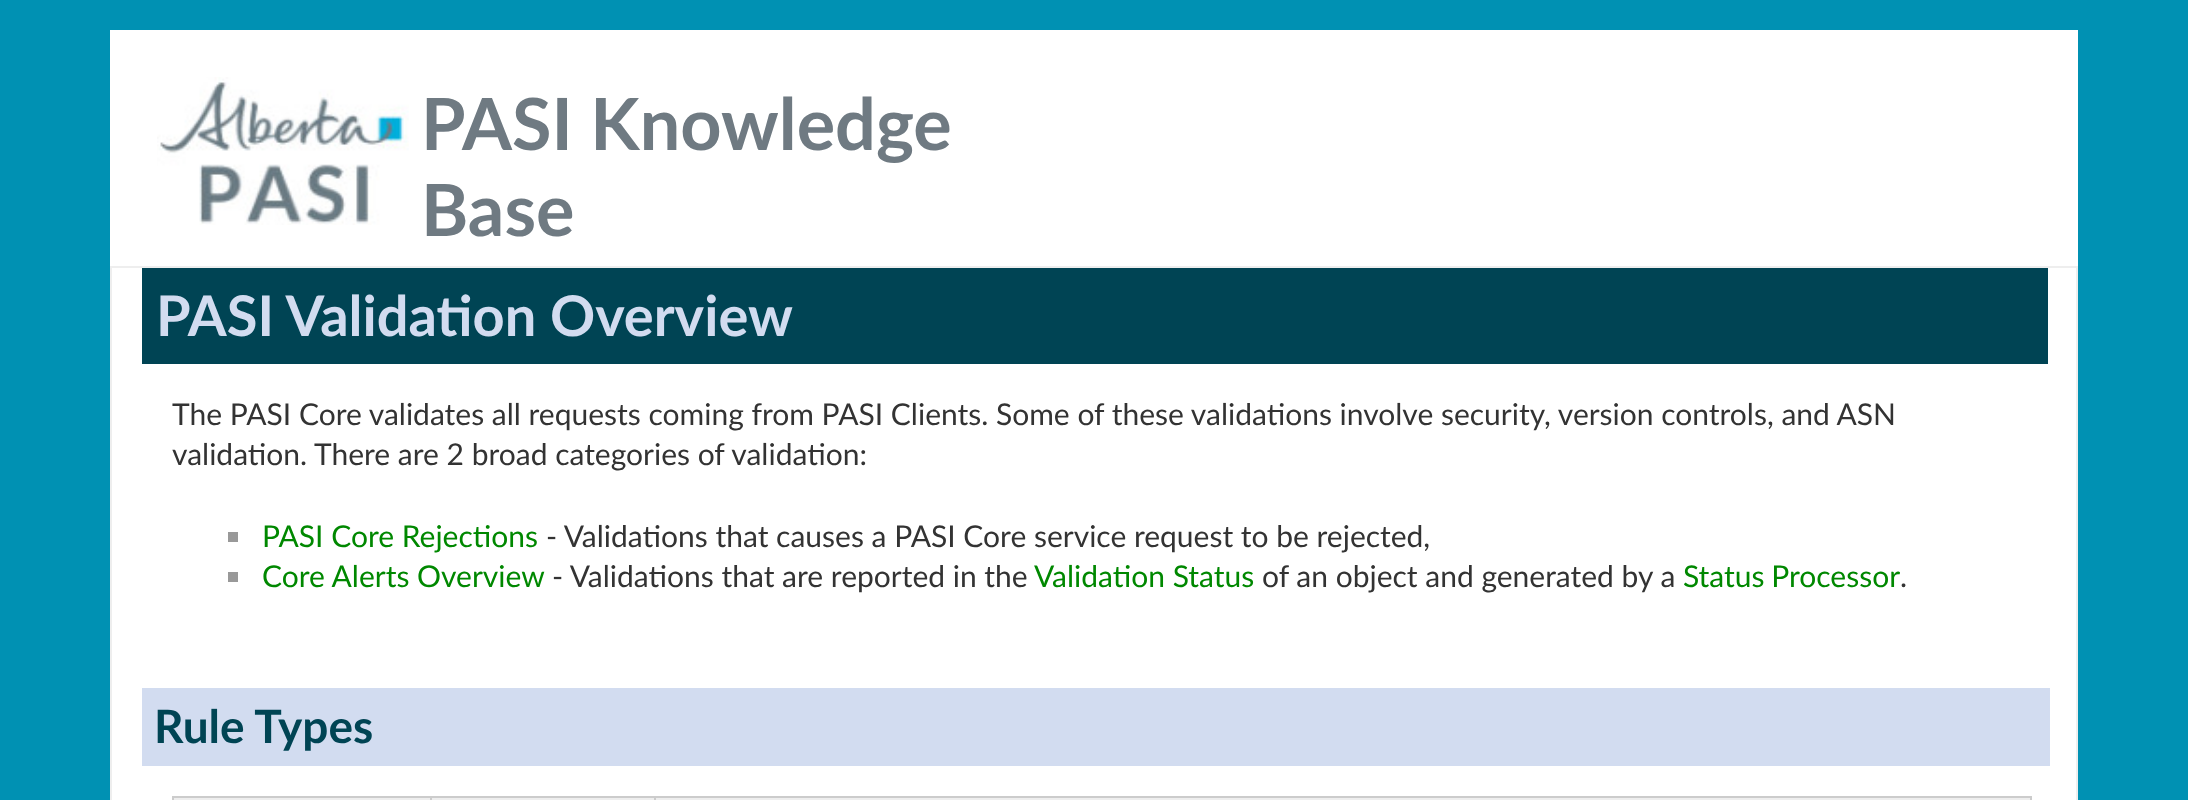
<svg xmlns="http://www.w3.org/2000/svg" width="2188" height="800">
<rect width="100%" height="100%" fill="#0091b3"/>
<rect x="110" y="30" width="1968" height="236" fill="#fff"/>
<image x="157" y="77" width="252" height="148" href="media/1.png"/>
<text x="421" y="150" style="font-family:Lato;font-size:72px;font-weight:bold;fill:#6f7a82">PASI Knowledge</text>
<text x="421" y="236" style="font-family:Lato;font-size:72px;font-weight:bold;fill:#6f7a82">Base</text>
<rect x="111" y="267" width="1966" height="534" fill="#fff" stroke="#eee" stroke-width="2"/>
<rect x="142" y="268" width="1906" height="96" fill="#004454"/>
<text x="156" y="336" style="font-family:Lato;font-size:56px;font-weight:bold;fill:#d2dcf0">PASI Validation Overview</text>
<text x="172" y="425" style="font-family:Lato;font-size:30px;fill:#333">The PASI Core validates all requests coming from PASI Clients. Some of these validations involve security, version controls, and ASN</text>
<text x="172" y="465" style="font-family:Lato;font-size:30px;fill:#333">validation. There are 2 broad categories of validation:</text>
<rect x="228" y="532" width="10" height="10" fill="#999"/>
<text x="262" y="547" style="font-family:Lato;font-size:30px;fill:#080">PASI Core Rejections</text>
<text x="546" y="547" style="font-family:Lato;font-size:30px;fill:#333">- Validations that causes a PASI Core service request to be rejected,</text>
<rect x="228" y="572" width="10" height="10" fill="#999"/>
<text x="262" y="587" style="font-family:Lato;font-size:30px;fill:#080">Core Alerts Overview</text>
<text x="552" y="587" style="font-family:Lato;font-size:30px;fill:#333">- Validations that are reported in the</text>
<text x="1034" y="587" style="font-family:Lato;font-size:30px;fill:#080">Validation Status</text>
<text x="1262" y="587" style="font-family:Lato;font-size:30px;fill:#333">of an object and generated by a</text>
<text x="1683" y="587" word-spacing="-1" style="font-family:Lato;font-size:30px;fill:#080">Status Processor</text>
<text x="1900" y="587" style="font-family:Lato;font-size:30px;fill:#333">.</text>
<rect x="142" y="688" width="1908" height="78" fill="#d2dcf0"/>
<text x="154" y="743" style="font-family:Lato;font-size:46px;font-weight:bold;fill:#004454">Rule Types</text>
<rect x="172" y="796" width="1860" height="2" fill="#ccc"/>
<rect x="2030" y="796" width="2" height="4" fill="#ccc"/>
<rect x="172" y="796" width="2" height="4" fill="#ccc"/>
<rect x="174" y="798" width="1856" height="2" fill="#eee"/>
<rect x="430" y="796" width="2" height="4" fill="#ccc"/>
<rect x="654" y="796" width="2" height="4" fill="#ccc"/>
</svg>
